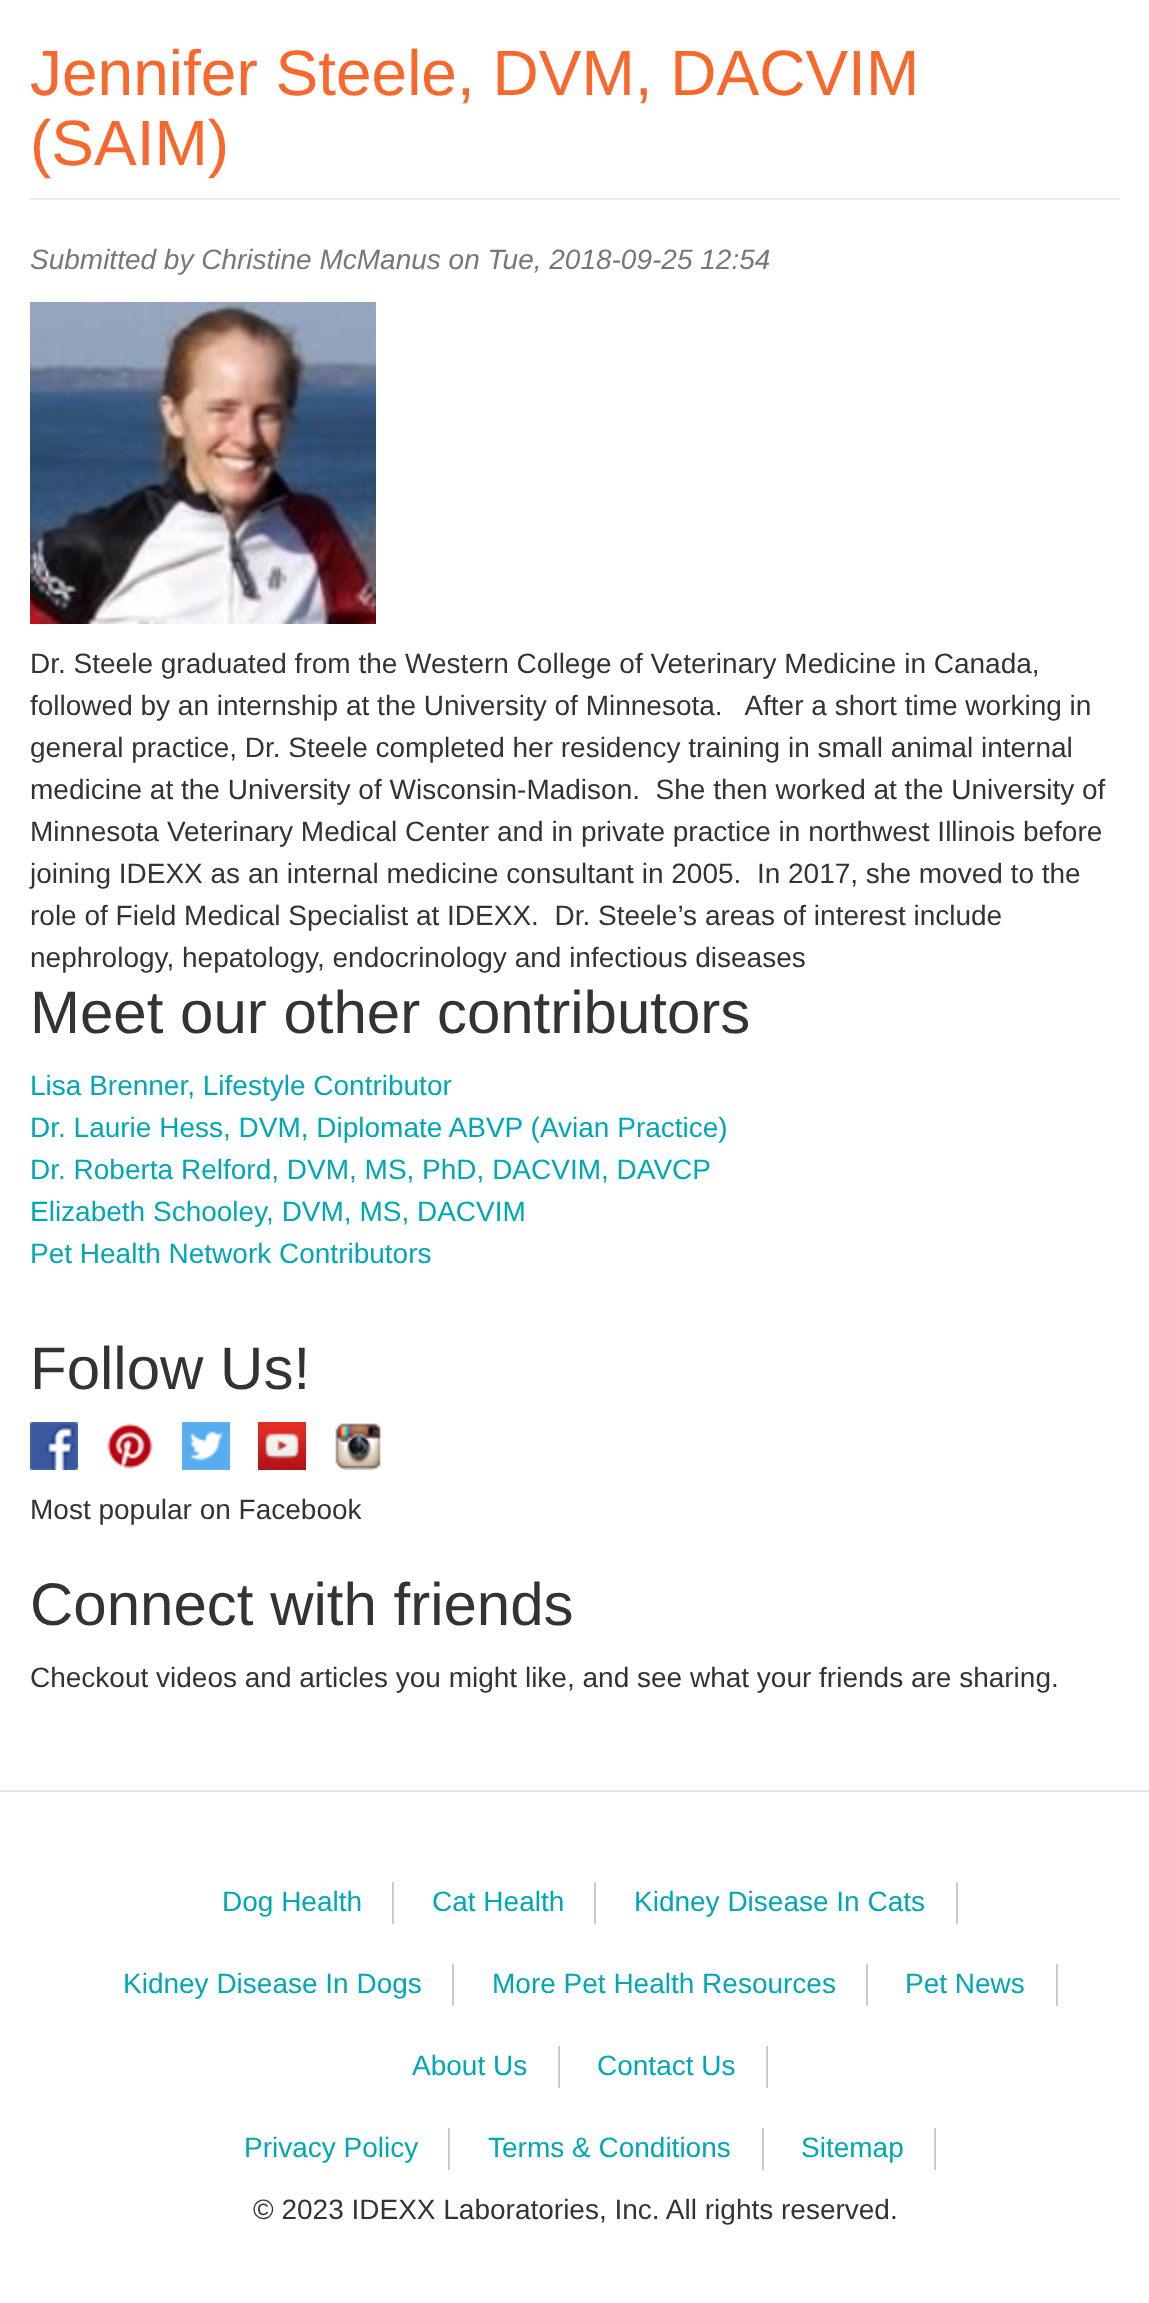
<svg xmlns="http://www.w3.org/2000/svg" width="1149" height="2303">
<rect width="100%" height="100%" fill="#fff"/>
<rect x="30" y="198" width="1090" height="2" fill="#eee"/>
<text x="30" y="95" style="font-family:Liberation Sans;font-size:64px;fill:#f8672b">Jennifer Steele, DVM, DACVIM</text>
<text x="30" y="165" style="font-family:Liberation Sans;font-size:64px;fill:#f8672b">(SAIM)</text>
<text x="30" y="269" style="font-family:Liberation Sans;font-size:28px;font-style:italic;fill:#777">Submitted by Christine McManus on Tue, 2018-09-25 12:54</text>
<image x="30" y="302" width="346" height="322" href="media/1.png"/>
<text x="30" y="673" style="font-family:Liberation Sans;font-size:28px;fill:#333">Dr. Steele graduated from the Western College of Veterinary Medicine in Canada,</text>
<text x="30" y="715" style="font-family:Liberation Sans;font-size:28px;fill:#333" xml:space="preserve">followed by an internship at the University of Minnesota.   After a short time working in</text>
<text x="30" y="757" style="font-family:Liberation Sans;font-size:28px;fill:#333">general practice, Dr. Steele completed her residency training in small animal internal</text>
<text x="30" y="799" style="font-family:Liberation Sans;font-size:28px;fill:#333" xml:space="preserve">medicine at the University of Wisconsin-Madison.  She then worked at the University of</text>
<text x="30" y="841" style="font-family:Liberation Sans;font-size:28px;fill:#333">Minnesota Veterinary Medical Center and in private practice in northwest Illinois before</text>
<text x="30" y="883" style="font-family:Liberation Sans;font-size:28px;fill:#333" xml:space="preserve">joining IDEXX as an internal medicine consultant in 2005.  In 2017, she moved to the</text>
<text x="30" y="925" style="font-family:Liberation Sans;font-size:28px;fill:#333" xml:space="preserve">role of Field Medical Specialist at IDEXX.  Dr. Steele’s areas of interest include</text>
<text x="30" y="967" style="font-family:Liberation Sans;font-size:28px;fill:#333">nephrology, hepatology, endocrinology and infectious diseases</text>
<text x="30" y="1033" style="font-family:Liberation Sans;font-size:60px;fill:#333">Meet our other contributors</text>
<text x="30" y="1095" style="font-family:Liberation Sans;font-size:28px;fill:#00a7b5">Lisa Brenner, Lifestyle Contributor</text>
<text x="30" y="1137" style="font-family:Liberation Sans;font-size:28px;fill:#00a7b5">Dr. Laurie Hess, DVM, Diplomate ABVP (Avian Practice)</text>
<text x="30" y="1179" style="font-family:Liberation Sans;font-size:28px;fill:#00a7b5">Dr. Roberta Relford, DVM, MS, PhD, DACVIM, DAVCP</text>
<text x="30" y="1221" style="font-family:Liberation Sans;font-size:28px;fill:#00a7b5">Elizabeth Schooley, DVM, MS, DACVIM</text>
<text x="30" y="1263" style="font-family:Liberation Sans;font-size:28px;fill:#00a7b5">Pet Health Network Contributors</text>
<text x="30" y="1389" style="font-family:Liberation Sans;font-size:60px;fill:#333">Follow Us!</text>
<image x="30" y="1422" width="48" height="48" href="media/2.png"/>
<image x="107" y="1423" width="46" height="46" href="media/3.png"/>
<image x="182" y="1422" width="48" height="48" href="media/4.png"/>
<image x="258" y="1422" width="48" height="48" href="media/5.png"/>
<image x="335" y="1423" width="46" height="47" href="media/6.png"/>
<text x="30" y="1519" style="font-family:Liberation Sans;font-size:28px;fill:#333">Most popular on Facebook</text>
<text x="30" y="1625" style="font-family:Liberation Sans;font-size:60px;fill:#333">Connect with friends</text>
<text x="30" y="1687" style="font-family:Liberation Sans;font-size:28px;fill:#333">Checkout videos and articles you might like, and see what your friends are sharing.</text>
<rect y="1790" width="1149" height="2" fill="#e5e5e5"/>
<rect x="392" y="1882" width="2" height="42" fill="#ccc"/>
<text x="222" y="1911" style="font-family:Liberation Sans;font-size:28px;fill:#00a7b5">Dog Health</text>
<rect x="594" y="1882" width="2" height="42" fill="#ccc"/>
<text x="432" y="1911" style="font-family:Liberation Sans;font-size:28px;fill:#00a7b5">Cat Health</text>
<rect x="956" y="1882" width="2" height="42" fill="#ccc"/>
<text x="634" y="1911" style="font-family:Liberation Sans;font-size:28px;fill:#00a7b5">Kidney Disease In Cats</text>
<rect x="452" y="1964" width="2" height="42" fill="#ccc"/>
<text x="123" y="1993" style="font-family:Liberation Sans;font-size:28px;fill:#00a7b5">Kidney Disease In Dogs</text>
<rect x="866" y="1964" width="2" height="42" fill="#ccc"/>
<text x="492" y="1993" style="font-family:Liberation Sans;font-size:28px;fill:#00a7b5">More Pet Health Resources</text>
<rect x="1056" y="1964" width="2" height="42" fill="#ccc"/>
<text x="905" y="1993" style="font-family:Liberation Sans;font-size:28px;fill:#00a7b5">Pet News</text>
<rect x="558" y="2046" width="2" height="42" fill="#ccc"/>
<text x="412" y="2075" style="font-family:Liberation Sans;font-size:28px;fill:#00a7b5">About Us</text>
<rect x="766" y="2046" width="2" height="42" fill="#ccc"/>
<text x="597" y="2075" style="font-family:Liberation Sans;font-size:28px;fill:#00a7b5">Contact Us</text>
<rect x="448" y="2128" width="2" height="42" fill="#ccc"/>
<text x="244" y="2157" style="font-family:Liberation Sans;font-size:28px;fill:#00a7b5">Privacy Policy</text>
<rect x="762" y="2128" width="2" height="42" fill="#ccc"/>
<text x="488" y="2157" style="font-family:Liberation Sans;font-size:28px;fill:#00a7b5">Terms &amp; Conditions</text>
<rect x="934" y="2128" width="2" height="42" fill="#ccc"/>
<text x="801" y="2157" style="font-family:Liberation Sans;font-size:28px;fill:#00a7b5">Sitemap</text>
<text x="253" y="2219" style="font-family:Liberation Sans;font-size:28px;fill:#333">© 2023 IDEXX Laboratories, Inc. All rights reserved.</text>
</svg>
